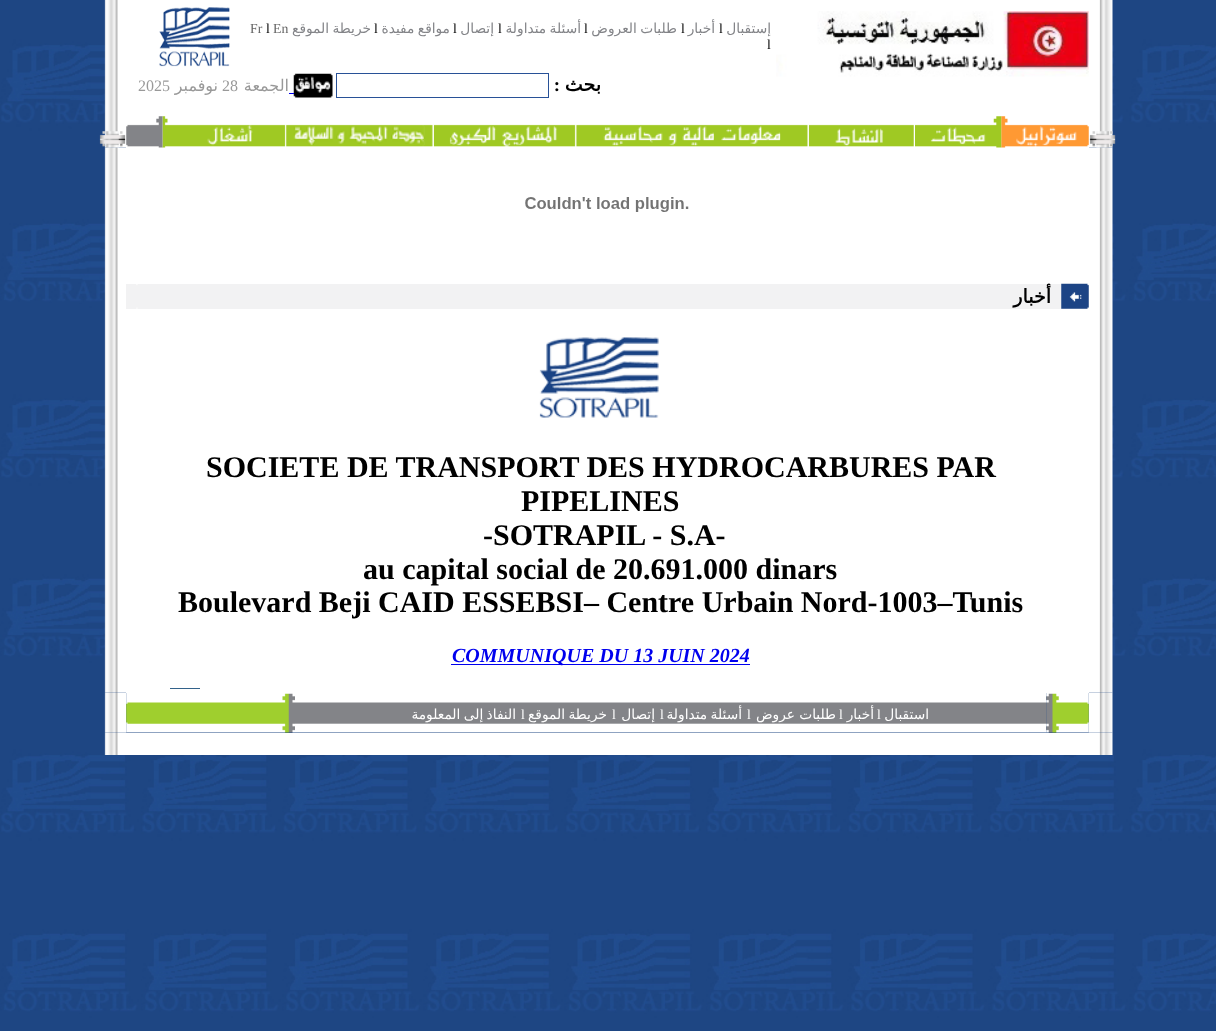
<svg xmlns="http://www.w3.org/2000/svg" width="1216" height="1031">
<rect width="100%" height="100%" fill="#fff"/>
<image x="0" y="0" width="1216" height="1031" href="media/1.png"/>
<image x="104" y="0" width="22" height="148" href="media/2.png"/>
<image x="104" y="147" width="22" height="113" href="media/17.png"/>
<image x="99" y="131" width="27" height="17" href="media/3.png"/>
<rect x="126" width="963" height="148" fill="#fff"/>
<image x="159" y="7" width="71" height="60" href="media/4.png"/>
<text x="250" y="33" style="font-family:Liberation Serif;font-size:13.75px;fill:#666">Fr</text>
<text x="266" y="33" style="font-family:Liberation Serif;font-size:13.75px;fill:#000">l</text>
<text x="273" y="33" style="font-family:Liberation Serif;font-size:13.75px;fill:#666">En</text>
<text x="371" y="33" word-spacing="-1" style="font-family:DejaVu Sans;font-size:13.75px;direction:rtl;fill:#838488">خريطة الموقع</text>
<text x="374" y="33" style="font-family:Liberation Serif;font-size:13.75px;fill:#000">l</text>
<text x="450" y="33" word-spacing="-1" style="font-family:DejaVu Sans;font-size:13.75px;direction:rtl;fill:#838488">مواقع مفيدة</text>
<text x="453" y="33" style="font-family:Liberation Serif;font-size:13.75px;fill:#000">l</text>
<text x="494" y="33" style="font-family:DejaVu Sans;font-size:13.75px;direction:rtl;fill:#838488">إتصال</text>
<text x="498" y="33" style="font-family:Liberation Serif;font-size:13.75px;fill:#000">l</text>
<text x="581" y="33" word-spacing="-1" style="font-family:DejaVu Sans;font-size:13.75px;direction:rtl;fill:#838488">أسئلة متداولة</text>
<text x="584" y="33" style="font-family:Liberation Serif;font-size:13.75px;fill:#000">l</text>
<text x="677" y="33" word-spacing="-1" style="font-family:DejaVu Sans;font-size:13.75px;direction:rtl;fill:#838488">طلبات العروض</text>
<text x="681" y="33" style="font-family:Liberation Serif;font-size:13.75px;fill:#000">l</text>
<text x="715" y="33" style="font-family:DejaVu Sans;font-size:13.75px;direction:rtl;fill:#838488">أخبار</text>
<text x="719" y="33" style="font-family:Liberation Serif;font-size:13.75px;fill:#000">l</text>
<text x="771" y="33" style="font-family:DejaVu Sans;font-size:13.75px;direction:rtl;fill:#838488">إستقبال</text>
<text x="767" y="49" style="font-family:Liberation Serif;font-size:13.75px;fill:#000">l</text>
<image x="776" y="11" width="313" height="66" href="media/5.png"/>
<text x="138" y="91" style="font-family:Liberation Serif;font-size:16px;fill:#999">2025</text>
<text x="218" y="91" style="font-family:DejaVu Sans;font-size:16px;direction:rtl;fill:#999">نوفمبر</text>
<text x="222" y="91" style="font-family:Liberation Serif;font-size:16px;fill:#999">28</text>
<text x="289" y="91" style="font-family:DejaVu Sans;font-size:16px;direction:rtl;fill:#999">الجمعة</text>
<image x="293" y="73" width="40" height="25" href="media/6.png"/>
<rect x="336.5" y="73.5" width="212" height="24" fill="none" stroke="#285197"/>
<text x="560" y="91" style="font-family:Liberation Serif;font-size:19px;font-weight:bold;direction:rtl;fill:#000">:</text>
<text x="601" y="91" style="font-family:DejaVu Sans;font-size:19px;font-weight:bold;direction:rtl;fill:#000">بحث</text>
<rect x="289" y="93" width="5" height="1" fill="#00e"/>
<image x="162" y="116" width="124" height="32" href="media/8.png"/>
<image x="126" y="116" width="37" height="32" href="media/7.png"/>
<image x="808" y="124" width="106" height="23" href="media/12.png"/>
<image x="576" y="124" width="233" height="23" href="media/11.png"/>
<image x="433" y="124" width="144" height="23" href="media/10.png"/>
<image x="286" y="124" width="148" height="23" href="media/9.png"/>
<image x="1089" y="0" width="24" height="148" href="media/15.png"/>
<image x="1088" y="147" width="25" height="113" href="media/19.png"/>
<image x="1001" y="116" width="88" height="32" href="media/14.png"/>
<image x="915" y="116" width="87" height="32" href="media/13.png"/>
<image x="1089" y="131" width="27" height="17" href="media/16.png"/>
<rect x="126" y="148" width="963" height="545" fill="#fff"/>
<image x="525" y="197" width="164" height="15" href="media/18.png"/>
<image x="104" y="260" width="22" height="433" href="media/20.png"/>
<rect x="126" y="284" width="963" height="25" fill="#f2f2f3"/>
<image x="136" y="284" width="2" height="25" href="media/21.png"/>
<text x="1051" y="303" style="font-family:DejaVu Sans;font-size:19px;font-weight:bold;direction:rtl;fill:#000">أخبار</text>
<image x="1061" y="283" width="28" height="26" href="media/22.png"/>
<image x="539" y="337" width="120" height="81" href="media/23.png"/>
<text x="206" y="477" style="font-family:Liberation Serif;font-size:30px;font-weight:bold;fill:#000">SOCIETE DE TRANSPORT DES HYDROCARBURES PAR</text>
<text x="521" y="511" style="font-family:Liberation Serif;font-size:30px;font-weight:bold;fill:#000">PIPELINES</text>
<text x="483" y="545" style="font-family:Liberation Serif;font-size:30px;font-weight:bold;fill:#000">-SOTRAPIL - S.A-</text>
<text x="363" y="579" style="font-family:Liberation Serif;font-size:30px;font-weight:bold;fill:#000">au capital social de 20.691.000 dinars</text>
<text x="178" y="612" style="font-family:Liberation Serif;font-size:30px;font-weight:bold;fill:#000">Boulevard Beji CAID ESSEBSI– Centre Urbain Nord-1003–Tunis</text>
<rect x="451" y="664" width="299" height="1" fill="#00e"/>
<text x="452" y="662" style="font-family:Liberation Serif;font-size:20px;font-weight:bold;font-style:italic;fill:#00e">COMMUNIQUE DU 13 JUIN 2024</text>
<rect x="170" y="688" width="30" height="1" fill="#33628a"/>
<image x="1089" y="260" width="24" height="433" href="media/24.png"/>
<image x="104" y="692" width="23" height="41" href="media/25.png"/>
<image x="1088" y="692" width="25" height="41" href="media/29.png"/>
<image x="1088" y="732" width="25" height="23" href="media/31.png"/>
<rect x="126" y="733" width="963" height="22" fill="#fff"/>
<image x="104" y="732" width="23" height="23" href="media/30.png"/>
<image x="126" y="693" width="169" height="40" href="media/26.png"/>
<image x="295" y="693" width="752" height="40" href="media/27.png"/>
<text x="516" y="719" word-spacing="-1" style="font-family:DejaVu Sans;font-size:13.75px;direction:rtl;fill:#fff">النفاذ إلى المعلومة</text>
<text x="521" y="719" style="font-family:Liberation Serif;font-size:13.75px;fill:#fff">l</text>
<text x="565" y="719" style="font-family:DejaVu Sans;font-size:13.75px;direction:rtl;fill:#fff">الموقع</text>
<text x="607" y="719" style="font-family:DejaVu Sans;font-size:13.75px;direction:rtl;fill:#fff">خريطة</text>
<text x="612" y="719" style="font-family:Liberation Serif;font-size:13.75px;fill:#fff">l</text>
<text x="655" y="719" style="font-family:DejaVu Sans;font-size:13.75px;direction:rtl;fill:#fff">إتصال</text>
<text x="660" y="719" style="font-family:Liberation Serif;font-size:13.75px;fill:#fff">l</text>
<text x="742" y="719" word-spacing="-1" style="font-family:DejaVu Sans;font-size:13.75px;direction:rtl;fill:#fff">أسئلة متداولة</text>
<text x="747" y="719" style="font-family:Liberation Serif;font-size:13.75px;fill:#fff">l</text>
<text x="795" y="719" style="font-family:DejaVu Sans;font-size:13.75px;direction:rtl;fill:#fff">عروض</text>
<text x="836" y="719" style="font-family:DejaVu Sans;font-size:13.75px;direction:rtl;fill:#fff">طلبات</text>
<text x="839" y="719" style="font-family:Liberation Serif;font-size:13.75px;fill:#fff">l</text>
<text x="874" y="719" style="font-family:DejaVu Sans;font-size:13.75px;direction:rtl;fill:#fff">أخبار</text>
<text x="877" y="719" style="font-family:Liberation Serif;font-size:13.75px;fill:#fff">l</text>
<text x="929" y="719" style="font-family:DejaVu Sans;font-size:13.75px;direction:rtl;fill:#fff">استقبال</text>
<image x="1046" y="693" width="43" height="40" href="media/28.png"/>
</svg>
